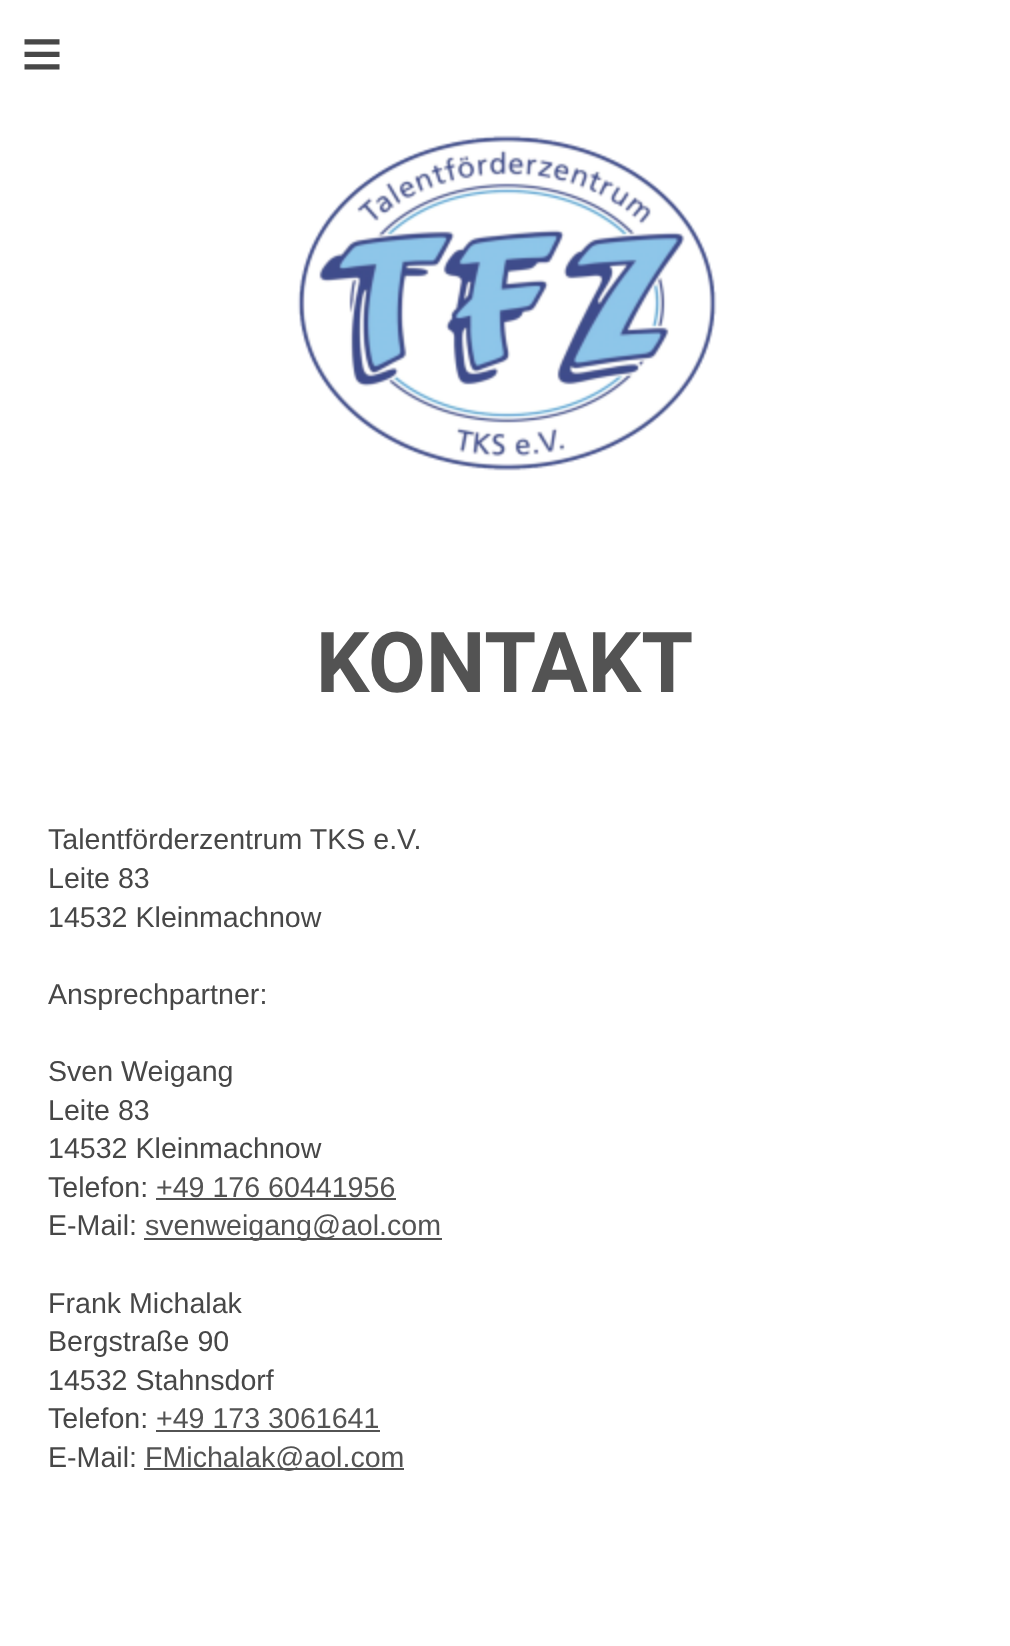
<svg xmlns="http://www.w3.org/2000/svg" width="1010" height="1646">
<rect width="100%" height="100%" fill="#fff"/>
<text x="21" y="78" style="font-family:Liberation Sans;font-size:72px;letter-spacing:21px;fill:#474747">≡</text>
<image x="297" y="135" width="420" height="336" href="media/1.png"/>
<text x="316" y="692" style="font-family:Roboto;font-size:84px;font-weight:bold;fill:#535353">KONTAKT</text>
<text x="48" y="849" style="font-family:Liberation Sans;font-size:28.6px;fill:#474747">Talentförderzentrum TKS e.V.</text>
<text x="48" y="888" style="font-family:Liberation Sans;font-size:28.6px;fill:#474747">Leite 83</text>
<text x="48" y="927" style="font-family:Liberation Sans;font-size:28.6px;fill:#474747">14532 Kleinmachnow</text>
<text x="48" y="1004" style="font-family:Liberation Sans;font-size:28.6px;fill:#474747">Ansprechpartner:</text>
<text x="48" y="1081" style="font-family:Liberation Sans;font-size:28.6px;fill:#474747">Sven Weigang</text>
<text x="48" y="1120" style="font-family:Liberation Sans;font-size:28.6px;fill:#474747">Leite 83</text>
<text x="48" y="1158" style="font-family:Liberation Sans;font-size:28.6px;fill:#474747">14532 Kleinmachnow</text>
<text x="48" y="1197" style="font-family:Liberation Sans;font-size:28.6px;fill:#474747">Telefon:</text>
<text x="156" y="1197" style="font-family:Liberation Sans;font-size:28.6px;fill:#535353">+49 176 60441956</text>
<rect x="156" y="1198" width="240" height="2" fill="#535353"/>
<text x="48" y="1235" style="font-family:Liberation Sans;font-size:28.6px;fill:#474747">E-Mail:</text>
<rect x="144" y="1238" width="298" height="2" fill="#535353"/>
<text x="145" y="1235" style="font-family:Liberation Sans;font-size:28.6px;fill:#535353">svenweigang@aol.com</text>
<text x="48" y="1313" style="font-family:Liberation Sans;font-size:28.6px;fill:#474747">Frank Michalak</text>
<text x="48" y="1351" style="font-family:Liberation Sans;font-size:28.6px;fill:#474747">Bergstraße 90</text>
<text x="48" y="1390" style="font-family:Liberation Sans;font-size:28.6px;fill:#474747">14532 Stahnsdorf</text>
<text x="48" y="1428" style="font-family:Liberation Sans;font-size:28.6px;fill:#474747">Telefon:</text>
<text x="156" y="1428" style="font-family:Liberation Sans;font-size:28.6px;fill:#535353">+49 173 3061641</text>
<rect x="156" y="1430" width="224" height="2" fill="#535353"/>
<text x="48" y="1467" style="font-family:Liberation Sans;font-size:28.6px;fill:#474747">E-Mail:</text>
<rect x="144" y="1468" width="260" height="2" fill="#535353"/>
<text x="145" y="1467" style="font-family:Liberation Sans;font-size:28.6px;fill:#535353">FMichalak@aol.com</text>
</svg>
